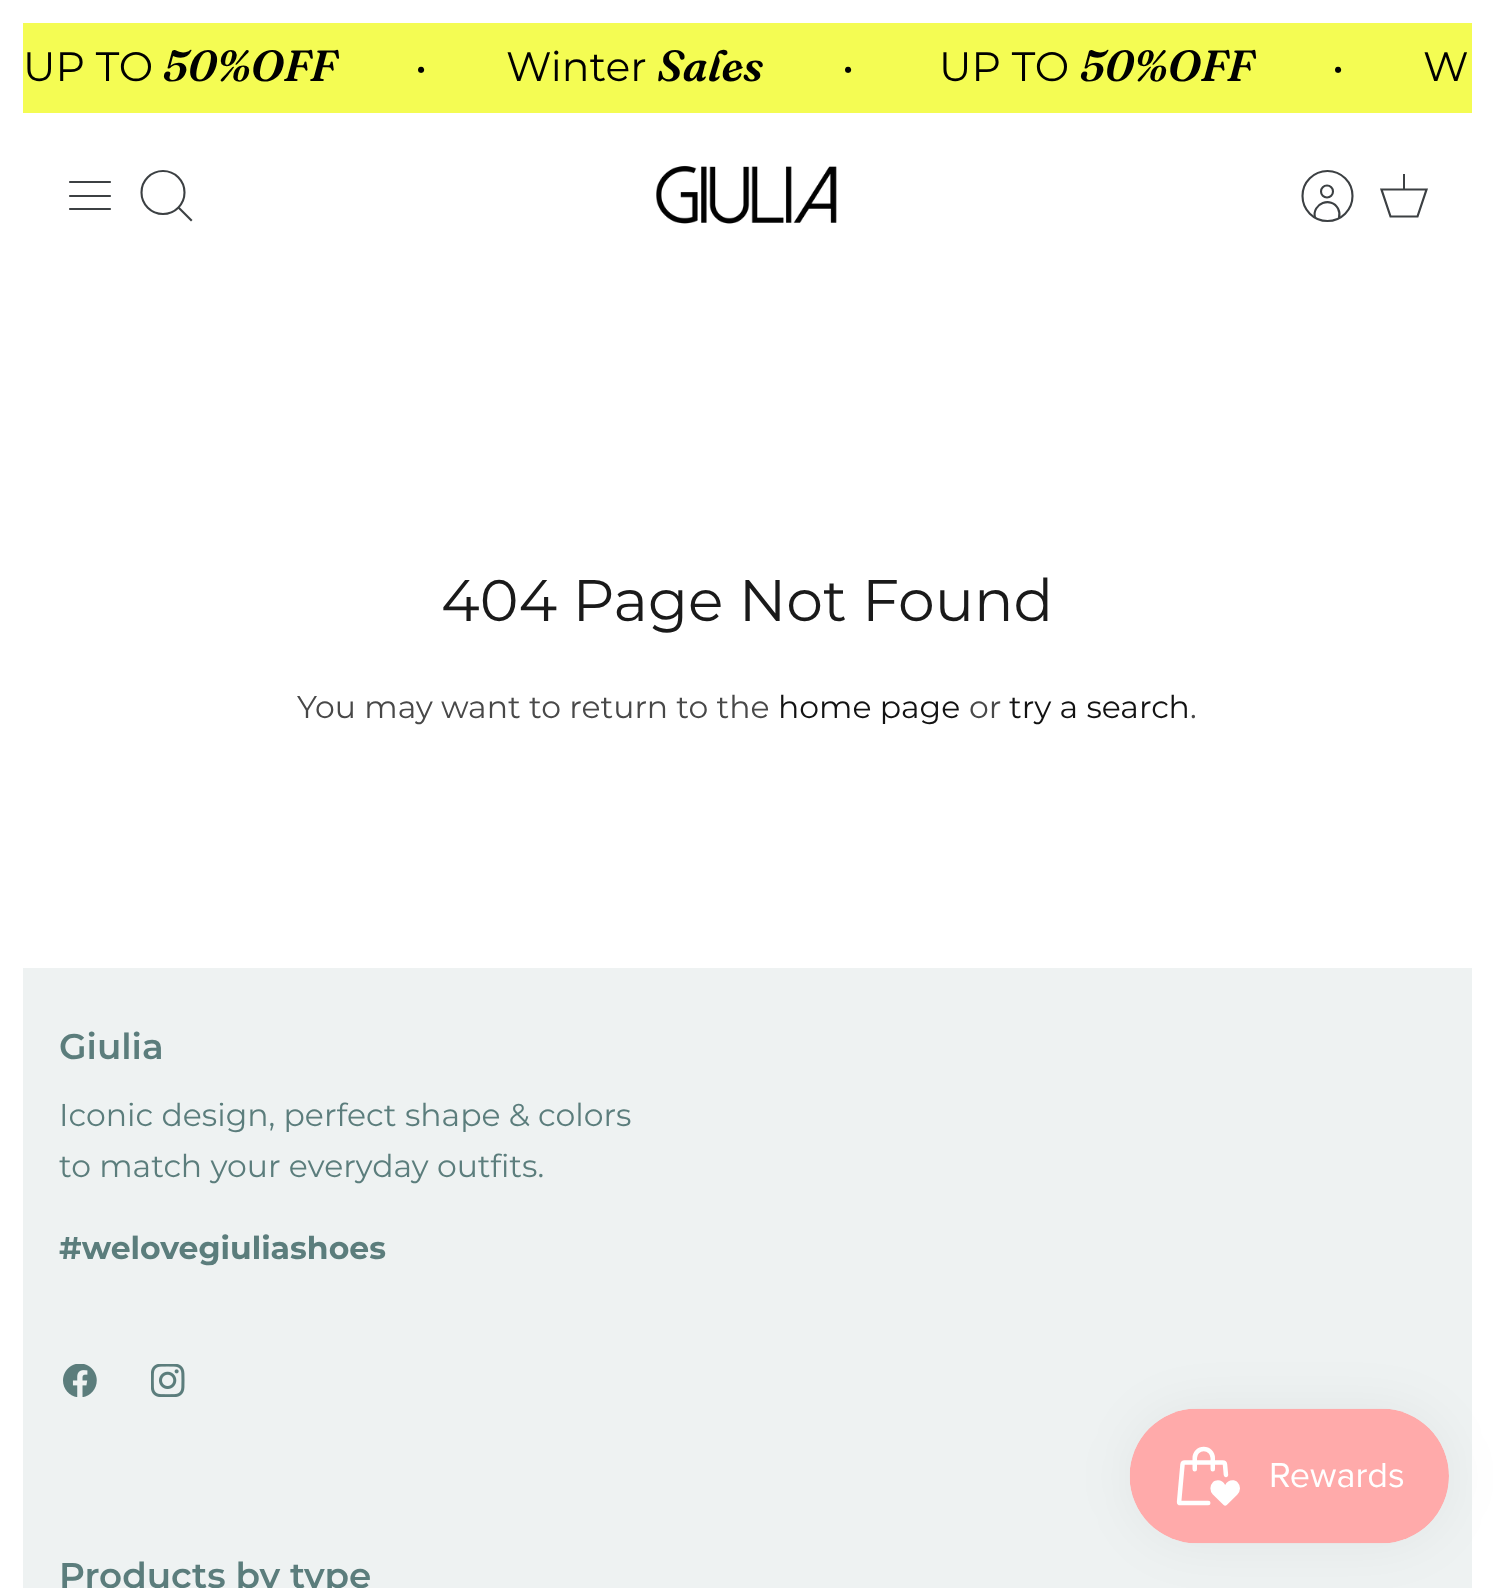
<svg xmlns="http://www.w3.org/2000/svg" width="1494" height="1588">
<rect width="100%" height="100%" fill="#fff"/>
<rect x="23" y="23" width="1449" height="90" fill="#f4fc53"/>
<text x="23" y="81" style="font-family:Montserrat;font-size:41px;fill:#000">UP TO</text>
<text x="163" y="81" style="font-family:Fraunces;font-size:43.5px;font-weight:600;font-style:italic;fill:#000">50%OFF</text>
<text x="415" y="81" style="font-family:Montserrat;font-size:41px;fill:#000">•</text>
<text x="506" y="81" style="font-family:Montserrat;font-size:41px;fill:#000">Winter</text>
<text x="657" y="81" style="font-family:Fraunces;font-size:43.5px;font-weight:600;font-style:italic;fill:#000">Sales</text>
<text x="842" y="81" style="font-family:Montserrat;font-size:41px;fill:#000">•</text>
<text x="939" y="81" style="font-family:Montserrat;font-size:41px;fill:#000">UP TO</text>
<text x="1080" y="81" style="font-family:Fraunces;font-size:43.5px;font-weight:600;font-style:italic;fill:#000">50%OFF</text>
<text x="1332" y="81" style="font-family:Montserrat;font-size:41px;fill:#000">•</text>
<text x="1423" y="81" style="font-family:Montserrat;font-size:41px;fill:#000">W</text>
<path d="M70 196h40m-40-14h40m-40 27h40" fill="none" stroke="#3c4043" stroke-width="2.2" stroke-linecap="round" stroke-linejoin="round"/>
<circle cx="163" cy="192.5" r="21.5" fill="none" stroke="#3c4043" stroke-width="2.1"/>
<path d="M179 208l12 12" fill="none" stroke="#3c4043" stroke-width="2.1" stroke-linecap="square"/>
<image x="656" y="165" width="181" height="59" href="media/1.png"/>
<path d="M1339 218c1-3.5 .5-6.5-1-9.5c-6.5-12.5-26.5-5-23 9" fill="none" stroke="#3c4043" stroke-width="2.1"/>
<circle cx="1327" cy="191.5" r="6" fill="none" stroke="#3c4043" stroke-width="2.1"/>
<circle cx="1327.5" cy="196" r="25" fill="none" stroke="#3c4043" stroke-width="2.1"/>
<path d="M1381.5 189.5h45l-9 27h-27z" fill="none" stroke="#3c4043" stroke-width="2.2"/>
<rect x="1403" y="174" width="2" height="16" fill="#3c4043"/>
<text x="441" y="621" style="font-family:Montserrat;font-size:58.5px;fill:#1a1a1a">404 Page Not Found</text>
<text x="297" y="718" style="font-family:Montserrat;font-size:31.5px;fill:#484848">You may want to return to the</text>
<text x="778" y="718" style="font-family:Montserrat;font-size:31.5px;fill:#121212">home page</text>
<text x="969" y="718" style="font-family:Montserrat;font-size:31.5px;fill:#484848">or</text>
<text x="1009" y="718" style="font-family:Montserrat;font-size:31.5px;fill:#121212">try a search</text>
<text x="1190" y="718" style="font-family:Montserrat;font-size:31.5px;fill:#484848">.</text>
<rect x="23" y="968" width="1449" height="620" fill="#eef2f2"/>
<text x="59" y="1059" style="font-family:Montserrat;font-size:35.75px;font-weight:600;fill:#5b7d7c">Giulia</text>
<text x="59" y="1126" style="font-family:Montserrat;font-size:31.5px;fill:#5b7d7c">Iconic design, perfect shape &amp; colors</text>
<text x="59" y="1177" style="font-family:Montserrat;font-size:31.5px;fill:#5b7d7c">to match your everyday outfits.</text>
<text x="59" y="1259" style="font-family:Montserrat;font-size:31.5px;font-weight:bold;fill:#5b7d7c">#welovegiuliashoes</text>
<image x="63" y="1364" width="34" height="33" href="media/2.png"/>
<image x="151" y="1364" width="34" height="33" href="media/3.png"/>
<text x="59" y="1588" style="font-family:Montserrat;font-size:35.75px;font-weight:600;fill:#5b7d7c">Products by type</text>
<rect x="1130" y="1409" width="319" height="135" rx="67.5" fill="#0000000d" filter="blur(28px)"/>
<image x="1129" y="1408" width="320" height="136" href="media/4.png"/>
</svg>
